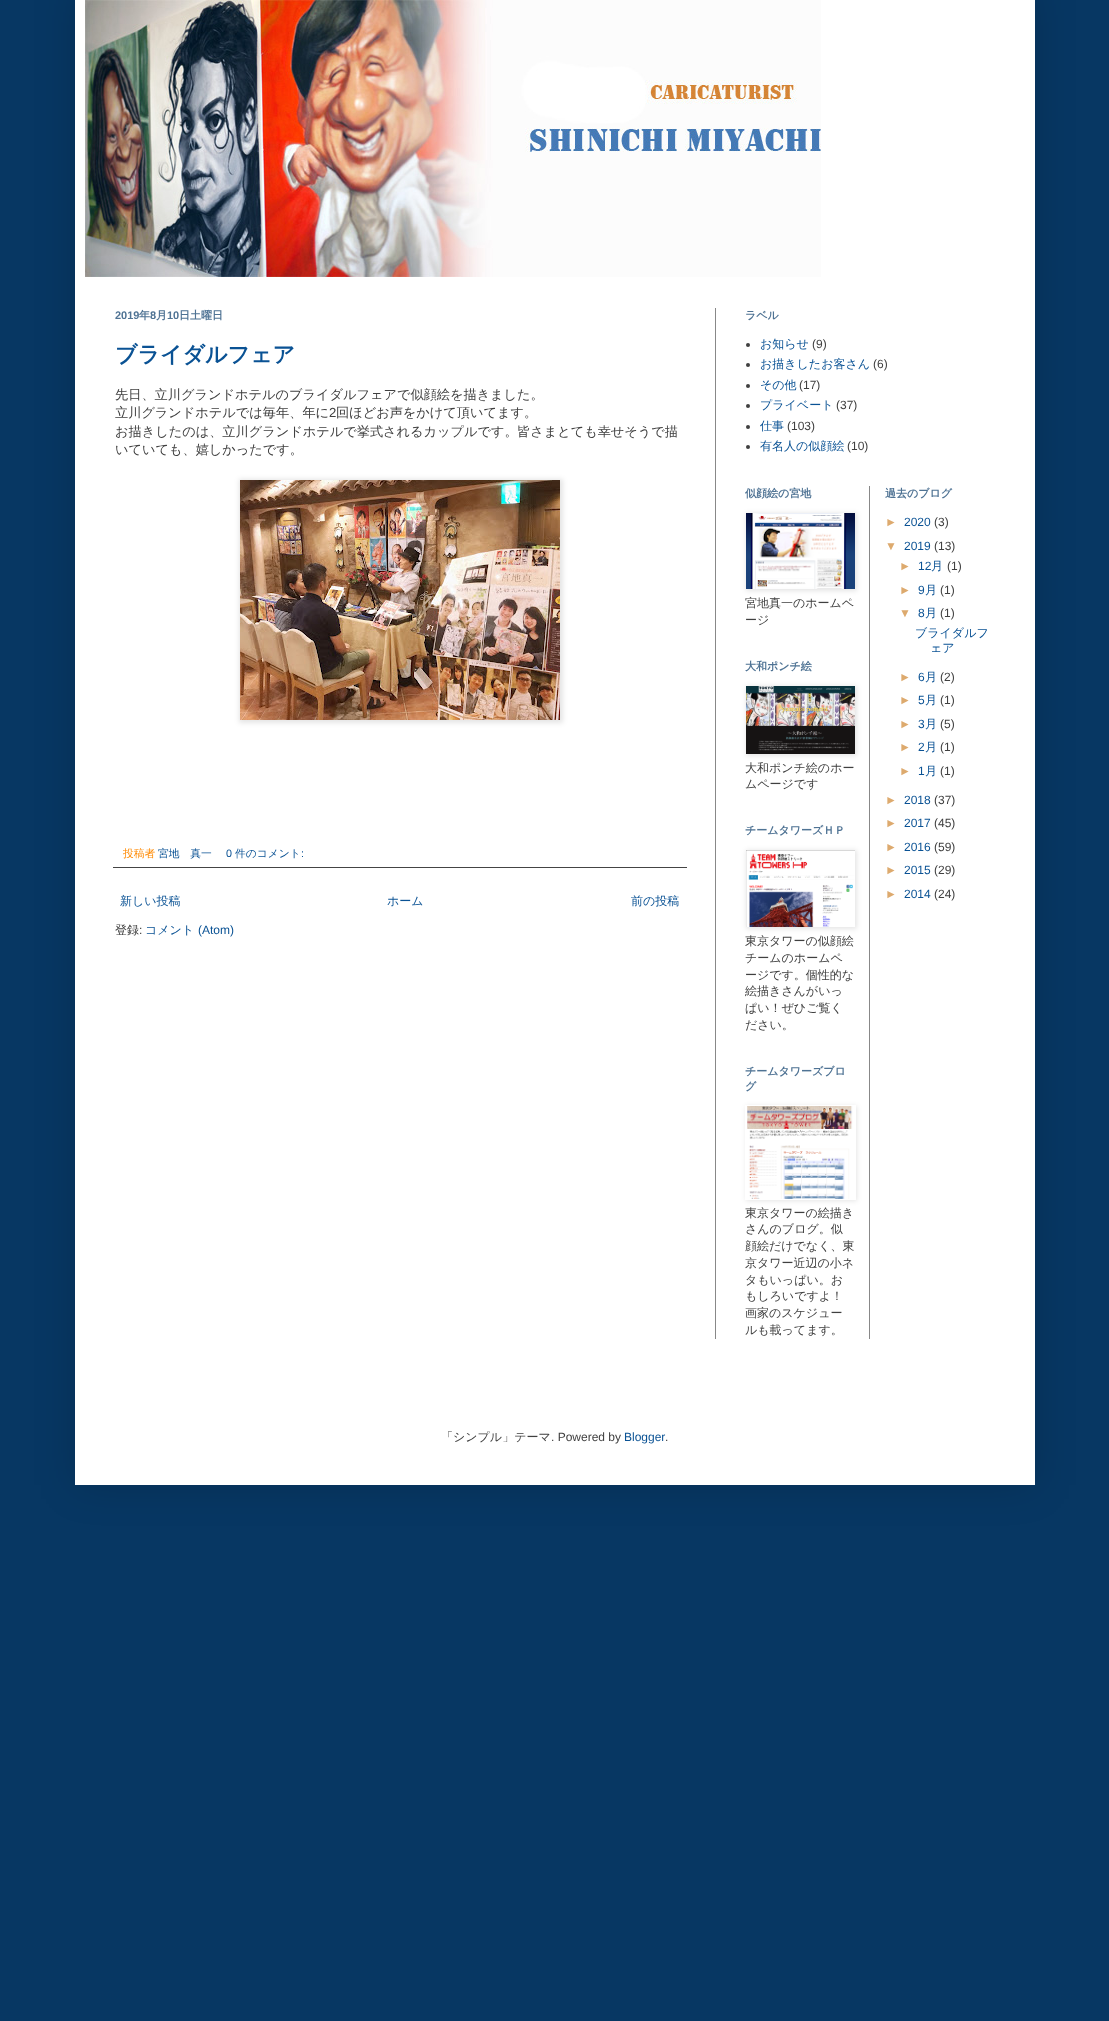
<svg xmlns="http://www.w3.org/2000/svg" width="1109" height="2021">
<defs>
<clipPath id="clip1"><path d="M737 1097h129v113h-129zm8 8h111v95h-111z" clip-rule="evenodd"/></clipPath>
</defs>
<rect width="100%" height="100%" fill="#073763"/>
<rect x="75" y="-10" width="960" height="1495" fill="#00000026" filter="blur(20px)"/>
<rect x="75" width="960" height="1485" fill="#fff"/>
<image x="85" y="0" width="736" height="277" href="media/1.png"/>
<rect x="715" y="308" width="1" height="1031" fill="#888"/>
<text x="115" y="319" style="font-family:Liberation Sans;font-size:11px;font-weight:bold;fill:#4f7394">2019</text>
<text x="139" y="319" style="font-family:WenQuanYi Zen Hei;font-size:11px;font-weight:bold;fill:#4f7394">年</text>
<text x="150" y="319" style="font-family:Liberation Sans;font-size:11px;font-weight:bold;fill:#4f7394">8</text>
<text x="156" y="319" style="font-family:WenQuanYi Zen Hei;font-size:11px;font-weight:bold;fill:#4f7394">月</text>
<text x="167" y="319" style="font-family:Liberation Sans;font-size:11px;font-weight:bold;fill:#4f7394">10</text>
<text x="179" y="319" style="font-family:WenQuanYi Zen Hei;font-size:11px;font-weight:bold;fill:#4f7394">日土曜日</text>
<text x="115" y="362" style="font-family:WenQuanYi Zen Hei;font-size:22px;font-weight:bold;fill:#0a5294">ブライダルフェア</text>
<text x="115" y="399" style="font-family:WenQuanYi Zen Hei;font-size:13.2px;font-weight:500;fill:#404040">先日、立川グランドホテルのブライダルフェアで似顔絵を描きました。</text>
<text x="115" y="417" style="font-family:WenQuanYi Zen Hei;font-size:13.2px;font-weight:500;fill:#404040">立川グランドホテルでは毎年、年に</text>
<text x="329" y="417" style="font-family:Liberation Sans;font-size:13.2px;fill:#404040">2</text>
<text x="336" y="417" style="font-family:WenQuanYi Zen Hei;font-size:13.2px;font-weight:500;fill:#404040">回ほどお声をかけて頂いてます。</text>
<text x="115" y="436" style="font-family:WenQuanYi Zen Hei;font-size:13.2px;font-weight:500;fill:#404040">お描きしたのは、立川グランドホテルで挙式されるカップルです。</text>
<text x="517" y="436" style="font-family:WenQuanYi Zen Hei;font-size:13.2px;font-weight:500;fill:#404040">皆さまとても幸せそうで描</text>
<text x="115" y="454" style="font-family:WenQuanYi Zen Hei;font-size:13.2px;font-weight:500;fill:#404040">いていても、嬉しかったです。</text>
<rect x="239" y="479" width="324" height="244" fill="#0000001a" filter="blur(2.5px)"/>
<image x="240" y="480" width="320" height="240" href="media/2.png"/>
<rect x="113" y="867" width="574" height="1" fill="#444"/>
<text x="123" y="857" style="font-family:WenQuanYi Zen Hei;font-size:10.75px;font-weight:500;fill:#ff8900">投稿者</text>
<text x="158" y="857" style="font-family:WenQuanYi Zen Hei;font-size:10.75px;font-weight:500;fill:#0a5294">宮地　真一</text>
<text x="226" y="857" style="font-family:Liberation Sans;font-size:10.75px;fill:#0a5294">0</text>
<text x="235" y="857" style="font-family:WenQuanYi Zen Hei;font-size:10.75px;font-weight:500;fill:#0a5294">件のコメント</text>
<text x="301" y="857" style="font-family:Liberation Sans;font-size:10.75px;fill:#0a5294">:</text>
<text x="120" y="905" style="font-family:WenQuanYi Zen Hei;font-size:12px;font-weight:500;fill:#0a5294">新しい投稿</text>
<text x="387" y="905" style="font-family:WenQuanYi Zen Hei;font-size:12px;font-weight:500;fill:#0a5294">ホーム</text>
<text x="631" y="905" style="font-family:WenQuanYi Zen Hei;font-size:12px;font-weight:500;fill:#0a5294">前の投稿</text>
<text x="115" y="934" style="font-family:WenQuanYi Zen Hei;font-size:12px;font-weight:500;fill:#404040">登録</text>
<text x="139" y="934" style="font-family:Liberation Sans;font-size:12px;fill:#404040">:</text>
<text x="145" y="934" style="font-family:WenQuanYi Zen Hei;font-size:12px;font-weight:500;fill:#0a5294">コメント</text>
<text x="198" y="934" style="font-family:Liberation Sans;font-size:12px;fill:#0a5294">(Atom)</text>
<text x="745" y="319" style="font-family:WenQuanYi Zen Hei;font-size:11px;font-weight:bold;fill:#4f7394">ラベル</text>
<circle cx="748" cy="345" r="2" fill="#404040"/>
<text x="760" y="348" style="font-family:WenQuanYi Zen Hei;font-size:12px;font-weight:500;fill:#0a5294">お知らせ</text>
<text x="812" y="348" style="font-family:Liberation Sans;font-size:12px;fill:#404040">(9)</text>
<circle cx="748" cy="365" r="2" fill="#404040"/>
<text x="760" y="368" style="font-family:WenQuanYi Zen Hei;font-size:12px;font-weight:500;fill:#0a5294">お描きしたお客さん</text>
<text x="873" y="368" style="font-family:Liberation Sans;font-size:12px;fill:#404040">(6)</text>
<circle cx="748" cy="386" r="2" fill="#404040"/>
<text x="760" y="389" style="font-family:WenQuanYi Zen Hei;font-size:12px;font-weight:500;fill:#0a5294">その他</text>
<text x="799" y="389" style="font-family:Liberation Sans;font-size:12px;fill:#404040">(17)</text>
<circle cx="748" cy="406" r="2" fill="#404040"/>
<text x="760" y="409" style="font-family:WenQuanYi Zen Hei;font-size:12px;font-weight:500;fill:#0a5294">プライベート</text>
<text x="836" y="409" style="font-family:Liberation Sans;font-size:12px;fill:#404040">(37)</text>
<circle cx="748" cy="427" r="2" fill="#404040"/>
<text x="760" y="430" style="font-family:WenQuanYi Zen Hei;font-size:12px;font-weight:500;fill:#0a5294">仕事</text>
<text x="787" y="430" style="font-family:Liberation Sans;font-size:12px;fill:#404040">(103)</text>
<circle cx="748" cy="447" r="2" fill="#404040"/>
<text x="760" y="450" style="font-family:WenQuanYi Zen Hei;font-size:12px;font-weight:500;fill:#0a5294">有名人の似顔絵</text>
<text x="847" y="450" style="font-family:Liberation Sans;font-size:12px;fill:#404040">(10)</text>
<text x="745" y="497" style="font-family:WenQuanYi Zen Hei;font-size:11px;font-weight:bold;fill:#4f7394">似顔絵の宮地</text>
<rect x="746" y="513" width="111" height="78" fill="#0000001a" filter="blur(2.5px)"/>
<image x="746" y="513" width="109" height="76" href="media/3.png"/>
<text x="745" y="607" style="font-family:WenQuanYi Zen Hei;font-size:12px;font-weight:500;fill:#404040">宮地真一のホームペ</text>
<text x="745" y="624" style="font-family:WenQuanYi Zen Hei;font-size:12px;font-weight:500;fill:#404040">ージ</text>
<text x="745" y="670" style="font-family:WenQuanYi Zen Hei;font-size:11px;font-weight:bold;fill:#4f7394">大和ポンチ絵</text>
<rect x="746" y="686" width="111" height="70" fill="#0000001a" filter="blur(2.5px)"/>
<image x="746" y="686" width="109" height="68" href="media/4.png"/>
<text x="745" y="772" style="font-family:WenQuanYi Zen Hei;font-size:12px;font-weight:500;fill:#404040">大和ポンチ絵のホー</text>
<text x="745" y="788" style="font-family:WenQuanYi Zen Hei;font-size:12px;font-weight:500;fill:#404040">ムページです</text>
<text x="745" y="834" style="font-family:WenQuanYi Zen Hei;font-size:11px;font-weight:bold;fill:#4f7394">チームタワーズＨＰ</text>
<rect x="746" y="850" width="111" height="79" fill="#0000001a" filter="blur(2.5px)"/>
<image x="746" y="850" width="109" height="77" href="media/5.png"/>
<text x="745" y="945" style="font-family:WenQuanYi Zen Hei;font-size:12px;font-weight:500;fill:#404040">東京タワーの似顔絵</text>
<text x="745" y="962" style="font-family:WenQuanYi Zen Hei;font-size:12px;font-weight:500;fill:#404040">チームのホームペ</text>
<text x="745" y="979" style="font-family:WenQuanYi Zen Hei;font-size:12px;font-weight:500;fill:#404040">ージです。個性的な</text>
<text x="745" y="995" style="font-family:WenQuanYi Zen Hei;font-size:12px;font-weight:500;fill:#404040">絵描きさんがいっ</text>
<text x="745" y="1012" style="font-family:WenQuanYi Zen Hei;font-size:12px;font-weight:500;fill:#404040">ぱい！ぜひご覧く</text>
<text x="745" y="1029" style="font-family:WenQuanYi Zen Hei;font-size:12px;font-weight:500;fill:#404040">ださい。</text>
<text x="745" y="1075" style="font-family:WenQuanYi Zen Hei;font-size:11px;font-weight:bold;fill:#4f7394">チームタワーズブロ</text>
<text x="745" y="1090" style="font-family:WenQuanYi Zen Hei;font-size:11px;font-weight:bold;fill:#4f7394">グ</text>
<g clip-path="url(#clip1)">
<rect x="746" y="1106" width="111" height="95" fill="#0000001a" filter="blur(2.5px)"/>
</g>
<image x="747" y="1106" width="106" height="93" href="media/6.png"/>
<text x="745" y="1217" style="font-family:WenQuanYi Zen Hei;font-size:12px;font-weight:500;fill:#404040">東京タワーの絵描き</text>
<text x="745" y="1233" style="font-family:WenQuanYi Zen Hei;font-size:12px;font-weight:500;fill:#404040">さんのブログ。似</text>
<text x="745" y="1250" style="font-family:WenQuanYi Zen Hei;font-size:12px;font-weight:500;fill:#404040">顔絵だけでなく、東</text>
<text x="745" y="1267" style="font-family:WenQuanYi Zen Hei;font-size:12px;font-weight:500;fill:#404040">京タワー近辺の小ネ</text>
<text x="745" y="1284" style="font-family:WenQuanYi Zen Hei;font-size:12px;font-weight:500;fill:#404040">タもいっぱい。お</text>
<text x="745" y="1300" style="font-family:WenQuanYi Zen Hei;font-size:12px;font-weight:500;fill:#404040">もしろいですよ！</text>
<text x="745" y="1317" style="font-family:WenQuanYi Zen Hei;font-size:12px;font-weight:500;fill:#404040">画家のスケジュー</text>
<text x="745" y="1334" style="font-family:WenQuanYi Zen Hei;font-size:12px;font-weight:500;fill:#404040">ルも載ってます。</text>
<rect x="869" y="486" width="1" height="853" fill="#888"/>
<text x="885" y="497" style="font-family:WenQuanYi Zen Hei;font-size:11px;font-weight:bold;fill:#4f7394">過去のブログ</text>
<text x="885" y="526" style="font-family:Liberation Sans;font-size:12px;fill:#ddaa6e">►</text>
<text x="904" y="526" style="font-family:Liberation Sans;font-size:12px;fill:#0a5294">2020</text>
<text x="934" y="526" style="font-family:Liberation Sans;font-size:12px;fill:#404040">(3)</text>
<text x="885" y="550" style="font-family:Liberation Sans;font-size:12px;fill:#ddaa6e">▼</text>
<text x="904" y="550" style="font-family:Liberation Sans;font-size:12px;fill:#0a5294">2019</text>
<text x="934" y="550" style="font-family:Liberation Sans;font-size:12px;fill:#404040">(13)</text>
<text x="899" y="570" style="font-family:Liberation Sans;font-size:12px;fill:#ddaa6e">►</text>
<text x="918" y="570" style="font-family:Liberation Sans;font-size:12px;fill:#0a5294">12</text>
<text x="931" y="570" style="font-family:WenQuanYi Zen Hei;font-size:12px;font-weight:500;fill:#0a5294">月</text>
<text x="947" y="570" style="font-family:Liberation Sans;font-size:12px;fill:#404040">(1)</text>
<text x="899" y="594" style="font-family:Liberation Sans;font-size:12px;fill:#ddaa6e">►</text>
<text x="918" y="594" style="font-family:Liberation Sans;font-size:12px;fill:#0a5294">9</text>
<text x="925" y="594" style="font-family:WenQuanYi Zen Hei;font-size:12px;font-weight:500;fill:#0a5294">月</text>
<text x="940" y="594" style="font-family:Liberation Sans;font-size:12px;fill:#404040">(1)</text>
<text x="899" y="617" style="font-family:Liberation Sans;font-size:12px;fill:#ddaa6e">▼</text>
<text x="918" y="617" style="font-family:Liberation Sans;font-size:12px;fill:#0a5294">8</text>
<text x="925" y="617" style="font-family:WenQuanYi Zen Hei;font-size:12px;font-weight:500;fill:#0a5294">月</text>
<text x="940" y="617" style="font-family:Liberation Sans;font-size:12px;fill:#404040">(1)</text>
<text x="915" y="637" style="font-family:WenQuanYi Zen Hei;font-size:12px;font-weight:500;fill:#0a5294">ブライダルフ</text>
<text x="930" y="652" style="font-family:WenQuanYi Zen Hei;font-size:12px;font-weight:500;fill:#0a5294">ェア</text>
<text x="899" y="681" style="font-family:Liberation Sans;font-size:12px;fill:#ddaa6e">►</text>
<text x="918" y="681" style="font-family:Liberation Sans;font-size:12px;fill:#0a5294">6</text>
<text x="925" y="681" style="font-family:WenQuanYi Zen Hei;font-size:12px;font-weight:500;fill:#0a5294">月</text>
<text x="940" y="681" style="font-family:Liberation Sans;font-size:12px;fill:#404040">(2)</text>
<text x="899" y="704" style="font-family:Liberation Sans;font-size:12px;fill:#ddaa6e">►</text>
<text x="918" y="704" style="font-family:Liberation Sans;font-size:12px;fill:#0a5294">5</text>
<text x="925" y="704" style="font-family:WenQuanYi Zen Hei;font-size:12px;font-weight:500;fill:#0a5294">月</text>
<text x="940" y="704" style="font-family:Liberation Sans;font-size:12px;fill:#404040">(1)</text>
<text x="899" y="728" style="font-family:Liberation Sans;font-size:12px;fill:#ddaa6e">►</text>
<text x="918" y="728" style="font-family:Liberation Sans;font-size:12px;fill:#0a5294">3</text>
<text x="925" y="728" style="font-family:WenQuanYi Zen Hei;font-size:12px;font-weight:500;fill:#0a5294">月</text>
<text x="940" y="728" style="font-family:Liberation Sans;font-size:12px;fill:#404040">(5)</text>
<text x="899" y="751" style="font-family:Liberation Sans;font-size:12px;fill:#ddaa6e">►</text>
<text x="918" y="751" style="font-family:Liberation Sans;font-size:12px;fill:#0a5294">2</text>
<text x="925" y="751" style="font-family:WenQuanYi Zen Hei;font-size:12px;font-weight:500;fill:#0a5294">月</text>
<text x="940" y="751" style="font-family:Liberation Sans;font-size:12px;fill:#404040">(1)</text>
<text x="899" y="775" style="font-family:Liberation Sans;font-size:12px;fill:#ddaa6e">►</text>
<text x="918" y="775" style="font-family:Liberation Sans;font-size:12px;fill:#0a5294">1</text>
<text x="925" y="775" style="font-family:WenQuanYi Zen Hei;font-size:12px;font-weight:500;fill:#0a5294">月</text>
<text x="940" y="775" style="font-family:Liberation Sans;font-size:12px;fill:#404040">(1)</text>
<text x="885" y="804" style="font-family:Liberation Sans;font-size:12px;fill:#ddaa6e">►</text>
<text x="904" y="804" style="font-family:Liberation Sans;font-size:12px;fill:#0a5294">2018</text>
<text x="934" y="804" style="font-family:Liberation Sans;font-size:12px;fill:#404040">(37)</text>
<text x="885" y="827" style="font-family:Liberation Sans;font-size:12px;fill:#ddaa6e">►</text>
<text x="904" y="827" style="font-family:Liberation Sans;font-size:12px;fill:#0a5294">2017</text>
<text x="934" y="827" style="font-family:Liberation Sans;font-size:12px;fill:#404040">(45)</text>
<text x="885" y="851" style="font-family:Liberation Sans;font-size:12px;fill:#ddaa6e">►</text>
<text x="904" y="851" style="font-family:Liberation Sans;font-size:12px;fill:#0a5294">2016</text>
<text x="934" y="851" style="font-family:Liberation Sans;font-size:12px;fill:#404040">(59)</text>
<text x="885" y="874" style="font-family:Liberation Sans;font-size:12px;fill:#ddaa6e">►</text>
<text x="904" y="874" style="font-family:Liberation Sans;font-size:12px;fill:#0a5294">2015</text>
<text x="934" y="874" style="font-family:Liberation Sans;font-size:12px;fill:#404040">(29)</text>
<text x="885" y="898" style="font-family:Liberation Sans;font-size:12px;fill:#ddaa6e">►</text>
<text x="904" y="898" style="font-family:Liberation Sans;font-size:12px;fill:#0a5294">2014</text>
<text x="934" y="898" style="font-family:Liberation Sans;font-size:12px;fill:#404040">(24)</text>
<text x="441" y="1441" style="font-family:WenQuanYi Zen Hei;font-size:12px;font-weight:500;fill:#404040">「シンプル」テーマ</text>
<text x="551" y="1441" style="font-family:Liberation Sans;font-size:12px;fill:#404040">. Powered by</text>
<text x="624" y="1441" style="font-family:Liberation Sans;font-size:12px;fill:#0a5294">Blogger</text>
<text x="665" y="1441" style="font-family:Liberation Sans;font-size:12px;fill:#404040">.</text>
</svg>
